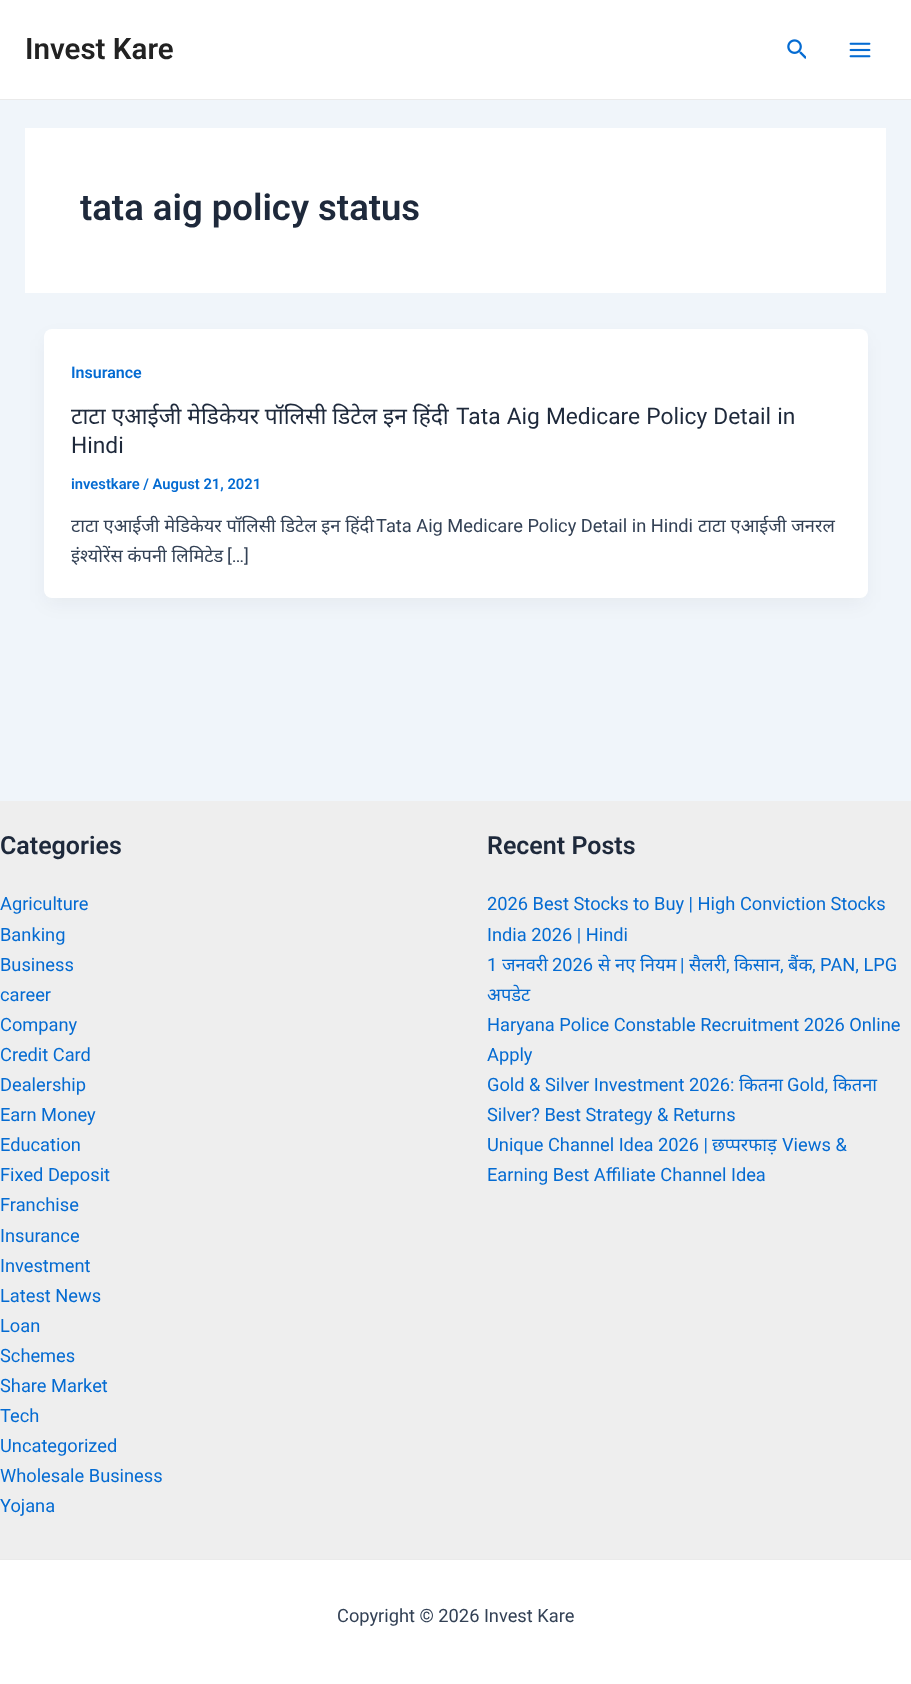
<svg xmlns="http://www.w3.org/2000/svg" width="911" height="1684">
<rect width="100%" height="100%" fill="#f0f5fa"/>
<rect width="911" height="99" fill="#fff"/>
<rect y="99" width="911" height="1" fill="#eaeaea"/>
<text x="25" y="59" style="font-family:Roboto;font-size:29.5px;font-weight:600;fill:#222">Invest Kare</text>
<image x="787" y="39" width="19" height="20" href="media/1.png"/>
<image x="849" y="42" width="22" height="16" href="media/2.png"/>
<rect x="25" y="128" width="861" height="165" fill="#fff"/>
<text x="80" y="220" style="font-family:Roboto;font-size:36.5px;font-weight:600;fill:#1e293b">tata aig policy status</text>
<rect x="46" y="339" width="819" height="264" rx="5" fill="#1018280d" filter="blur(9.5px)"/>
<rect x="44" y="329" width="824" height="269" rx="8" fill="#fff"/>
<text x="71" y="378" style="font-family:Roboto;font-size:16px;font-weight:600;fill:#046bd2">Insurance</text>
<text x="71" y="424" style="font-family:Noto Sans;font-size:22.75px;fill:#1e293b">टाटा एआईजी मेडिकेयर पॉलिसी डिटेल इन हिंदी</text>
<text x="456" y="424" word-spacing="0.5" style="font-family:Roboto;font-size:22.75px;fill:#1e293b">Tata Aig Medicare Policy Detail in</text>
<text x="71" y="453" style="font-family:Roboto;font-size:22.75px;fill:#1e293b">Hindi</text>
<text x="71" y="489" style="font-family:Roboto;font-size:14.75px;font-weight:600;fill:#046bd2">investkare / August 21, 2021</text>
<text x="71" y="532" style="font-family:Noto Sans;font-size:18.25px;fill:#334155">टाटा एआईजी मेडिकेयर पॉलिसी डिटेल इन हिंदी</text>
<text x="376" y="532" style="font-family:Roboto;font-size:18.25px;fill:#334155">Tata Aig Medicare Policy Detail in Hindi</text>
<text x="698" y="532" style="font-family:Noto Sans;font-size:18.25px;fill:#334155">टाटा एआईजी जनरल</text>
<text x="71" y="562" style="font-family:Noto Sans;font-size:18.25px;fill:#334155">इंश्योरेंस कंपनी लिमिटेड</text>
<text x="227" y="562" style="font-family:Roboto;font-size:18.25px;fill:#334155">[…]</text>
<rect y="801" width="911" height="758" fill="#eee"/>
<text x="0" y="854" style="font-family:Roboto;font-size:25px;font-weight:600;fill:#1e293b">Categories</text>
<text x="0" y="910" style="font-family:Roboto;font-size:18.25px;fill:#046bd2">Agriculture</text>
<text x="0" y="941" style="font-family:Roboto;font-size:18.25px;fill:#046bd2">Banking</text>
<text x="0" y="971" style="font-family:Roboto;font-size:18.25px;fill:#046bd2">Business</text>
<text x="0" y="1001" style="font-family:Roboto;font-size:18.25px;fill:#046bd2">career</text>
<text x="0" y="1031" style="font-family:Roboto;font-size:18.25px;fill:#046bd2">Company</text>
<text x="0" y="1061" style="font-family:Roboto;font-size:18.25px;fill:#046bd2">Credit Card</text>
<text x="0" y="1091" style="font-family:Roboto;font-size:18.25px;fill:#046bd2">Dealership</text>
<text x="0" y="1121" style="font-family:Roboto;font-size:18.25px;fill:#046bd2">Earn Money</text>
<text x="0" y="1151" style="font-family:Roboto;font-size:18.25px;fill:#046bd2">Education</text>
<text x="0" y="1181" style="font-family:Roboto;font-size:18.25px;fill:#046bd2">Fixed Deposit</text>
<text x="0" y="1211" style="font-family:Roboto;font-size:18.25px;fill:#046bd2">Franchise</text>
<text x="0" y="1242" style="font-family:Roboto;font-size:18.25px;fill:#046bd2">Insurance</text>
<text x="0" y="1272" style="font-family:Roboto;font-size:18.25px;fill:#046bd2">Investment</text>
<text x="0" y="1302" style="font-family:Roboto;font-size:18.25px;fill:#046bd2">Latest News</text>
<text x="0" y="1332" style="font-family:Roboto;font-size:18.25px;fill:#046bd2">Loan</text>
<text x="0" y="1362" style="font-family:Roboto;font-size:18.25px;fill:#046bd2">Schemes</text>
<text x="0" y="1392" style="font-family:Roboto;font-size:18.25px;fill:#046bd2">Share Market</text>
<text x="0" y="1422" style="font-family:Roboto;font-size:18.25px;fill:#046bd2">Tech</text>
<text x="0" y="1452" style="font-family:Roboto;font-size:18.25px;fill:#046bd2">Uncategorized</text>
<text x="0" y="1482" style="font-family:Roboto;font-size:18.25px;fill:#046bd2">Wholesale Business</text>
<text x="0" y="1512" style="font-family:Roboto;font-size:18.25px;fill:#046bd2">Yojana</text>
<text x="487" y="854" style="font-family:Roboto;font-size:25px;font-weight:600;fill:#1e293b">Recent Posts</text>
<text x="487" y="910" style="font-family:Roboto;font-size:18.25px;fill:#046bd2">2026 Best Stocks to Buy | High Conviction Stocks</text>
<text x="487" y="941" style="font-family:Roboto;font-size:18.25px;fill:#046bd2">India 2026 | Hindi</text>
<text x="487" y="971" style="font-family:Roboto;font-size:18.25px;fill:#046bd2">1</text>
<text x="502" y="971" style="font-family:Noto Sans;font-size:18.25px;fill:#046bd2">जनवरी</text>
<text x="552" y="971" style="font-family:Roboto;font-size:18.25px;fill:#046bd2">2026</text>
<text x="598" y="971" style="font-family:Noto Sans;font-size:18.25px;fill:#046bd2">से नए नियम</text>
<text x="680" y="971" style="font-family:Roboto;font-size:18.25px;fill:#046bd2">|</text>
<text x="689" y="971" style="font-family:Noto Sans;font-size:18.25px;fill:#046bd2">सैलरी</text>
<text x="734" y="971" style="font-family:Noto Sans;font-size:18.25px;fill:#046bd2">किसान</text>
<text x="788" y="971" style="font-family:Noto Sans;font-size:18.25px;fill:#046bd2">बैंक</text>
<text x="812" y="971" style="font-family:Roboto;font-size:18.25px;fill:#046bd2">, PAN, LPG</text>
<text x="726" y="971" style="font-family:Roboto;font-size:18.25px;fill:#046bd2">,</text>
<text x="780" y="971" style="font-family:Roboto;font-size:18.25px;fill:#046bd2">,</text>
<text x="487" y="1001" style="font-family:Noto Sans;font-size:18.25px;fill:#046bd2">अपडेट</text>
<text x="487" y="1031" style="font-family:Roboto;font-size:18.25px;fill:#046bd2">Haryana Police Constable Recruitment 2026 Online</text>
<text x="487" y="1061" style="font-family:Roboto;font-size:18.25px;fill:#046bd2">Apply</text>
<text x="487" y="1091" style="font-family:Roboto;font-size:18.25px;fill:#046bd2">Gold &amp; Silver Investment 2026:</text>
<text x="739" y="1091" style="font-family:Noto Sans;font-size:18.25px;fill:#046bd2">कितना</text>
<text x="787" y="1091" style="font-family:Roboto;font-size:18.25px;fill:#046bd2">Gold,</text>
<text x="833" y="1091" style="font-family:Noto Sans;font-size:18.25px;fill:#046bd2">कितना</text>
<text x="487" y="1121" style="font-family:Roboto;font-size:18.25px;fill:#046bd2">Silver? Best Strategy &amp; Returns</text>
<text x="487" y="1151" style="font-family:Roboto;font-size:18.25px;fill:#046bd2">Unique Channel Idea 2026 |</text>
<text x="712" y="1151" style="font-family:Noto Sans;font-size:18.25px;fill:#046bd2">छप्परफाड़</text>
<text x="782" y="1151" style="font-family:Roboto;font-size:18.25px;fill:#046bd2">Views &amp;</text>
<text x="487" y="1181" style="font-family:Roboto;font-size:18.25px;fill:#046bd2">Earning Best Affiliate Channel Idea</text>
<rect y="1560" width="911" height="124" fill="#fff"/>
<rect y="1559" width="911" height="1" fill="#eaeaea"/>
<text x="337" y="1622" style="font-family:Roboto;font-size:18.25px;fill:#334155">Copyright © 2026 Invest Kare</text>
</svg>
